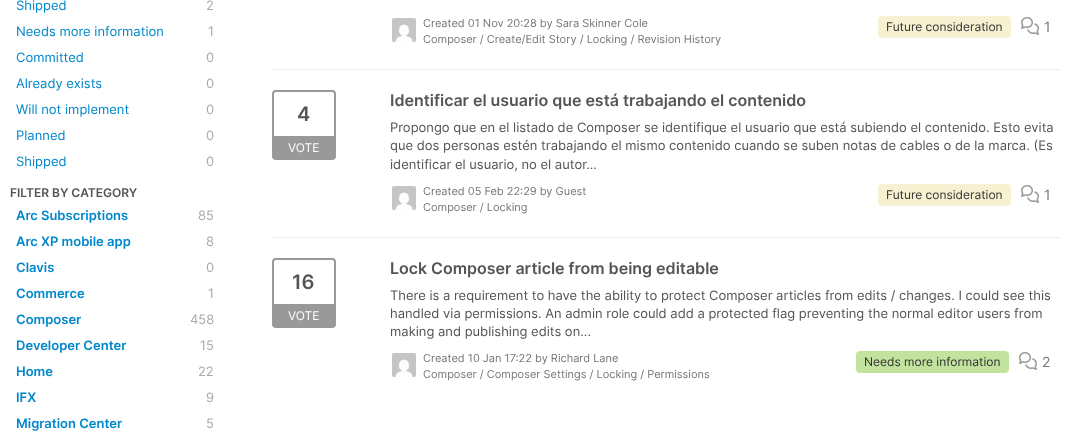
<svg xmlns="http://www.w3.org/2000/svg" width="1071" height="447">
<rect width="100%" height="100%" fill="#fff"/>
<text x="16" y="10" style="font-family:Inter;font-size:13px;fill:#08c">Shipped</text>
<text x="206" y="10" style="font-family:Inter;font-size:13px;fill:#aaa">2</text>
<text x="16" y="36" style="font-family:Inter;font-size:13px;fill:#08c">Needs more information</text>
<text x="208" y="36" style="font-family:Inter;font-size:13px;fill:#aaa">1</text>
<text x="16" y="62" style="font-family:Inter;font-size:13px;fill:#08c">Committed</text>
<text x="206" y="62" style="font-family:Inter;font-size:13px;fill:#aaa">0</text>
<text x="16" y="88" style="font-family:Inter;font-size:13px;fill:#08c">Already exists</text>
<text x="206" y="88" style="font-family:Inter;font-size:13px;fill:#aaa">0</text>
<text x="16" y="114" style="font-family:Inter;font-size:13px;fill:#08c">Will not implement</text>
<text x="206" y="114" style="font-family:Inter;font-size:13px;fill:#aaa">0</text>
<text x="16" y="140" style="font-family:Inter;font-size:13px;fill:#08c">Planned</text>
<text x="206" y="140" style="font-family:Inter;font-size:13px;fill:#aaa">0</text>
<text x="16" y="166" style="font-family:Inter;font-size:13px;fill:#08c">Shipped</text>
<text x="206" y="166" style="font-family:Inter;font-size:13px;fill:#aaa">0</text>
<text x="10" y="197" style="font-family:Inter;font-size:12px;font-weight:600;fill:#555">FILTER BY CATEGORY</text>
<text x="16" y="220" style="font-family:Inter;font-size:13px;font-weight:600;fill:#08c">Arc Subscriptions</text>
<text x="198" y="220" style="font-family:Inter;font-size:13px;fill:#aaa">85</text>
<text x="16" y="246" style="font-family:Inter;font-size:13px;font-weight:600;fill:#08c">Arc XP mobile app</text>
<text x="206" y="246" style="font-family:Inter;font-size:13px;fill:#aaa">8</text>
<text x="16" y="272" style="font-family:Inter;font-size:13px;font-weight:600;fill:#08c">Clavis</text>
<text x="206" y="272" style="font-family:Inter;font-size:13px;fill:#aaa">0</text>
<text x="16" y="298" style="font-family:Inter;font-size:13px;font-weight:600;fill:#08c">Commerce</text>
<text x="208" y="298" style="font-family:Inter;font-size:13px;fill:#aaa">1</text>
<text x="16" y="324" style="font-family:Inter;font-size:13px;font-weight:600;fill:#08c">Composer</text>
<text x="190" y="324" style="font-family:Inter;font-size:13px;fill:#aaa">458</text>
<text x="16" y="350" style="font-family:Inter;font-size:13px;font-weight:600;fill:#08c">Developer Center</text>
<text x="200" y="350" style="font-family:Inter;font-size:13px;fill:#aaa">15</text>
<text x="16" y="376" style="font-family:Inter;font-size:13px;font-weight:600;fill:#08c">Home</text>
<text x="198" y="376" style="font-family:Inter;font-size:13px;fill:#aaa">22</text>
<text x="16" y="402" style="font-family:Inter;font-size:13px;font-weight:600;fill:#08c">IFX</text>
<text x="206" y="402" style="font-family:Inter;font-size:13px;fill:#aaa">9</text>
<text x="16" y="428" style="font-family:Inter;font-size:13px;font-weight:600;fill:#08c">Migration Center</text>
<text x="206" y="428" style="font-family:Inter;font-size:13px;fill:#aaa">5</text>
<rect x="272" y="69" width="789" height="1" fill="#eee"/>
<image x="392" y="18" width="24" height="24" href="media/1.png"/>
<text x="423" y="27" style="font-family:Inter;font-size:11px;fill:#777">Created 01 Nov 20:28 by Sara Skinner Cole</text>
<text x="423" y="43" style="font-family:Inter;font-size:11px;fill:#777">Composer / Create/Edit Story / Locking / Revision History</text>
<rect x="878" y="16" width="133" height="22" rx="4" fill="#f7f1d2"/>
<text x="886" y="31" style="font-family:Inter;font-size:12px;fill:#333">Future consideration</text>
<image x="1021" y="17" width="18" height="18" href="media/2.png"/>
<text x="1044" y="32" style="font-family:Inter;font-size:14px;fill:#777">1</text>
<rect x="272" y="237" width="789" height="1" fill="#eee"/>
<rect x="273" y="91" width="62" height="68" rx="3" fill="none" stroke="#999" stroke-width="2"/>
<text x="297" y="121" style="font-family:Inter;font-size:20px;font-weight:600;fill:#555">4</text>
<rect x="274" y="136" width="60" height="22" fill="#999"/>
<text x="288" y="152" style="font-family:Inter;font-size:12px;fill:#fff">VOTE</text>
<text x="390" y="106" style="font-family:Inter;font-size:16px;font-weight:600;fill:#555">Identificar el usuario que está trabajando el contenido</text>
<text x="390" y="132" style="font-family:Inter;font-size:13px;fill:#555">Propongo que en el listado de Composer se identifique el usuario que está subiendo el contenido. Esto evita</text>
<text x="390" y="150" style="font-family:Inter;font-size:13px;fill:#555">que dos personas estén trabajando el mismo contenido cuando se suben notas de cables o de la marca. (Es</text>
<text x="390" y="169" style="font-family:Inter;font-size:13px;fill:#555">identificar el usuario, no el autor...</text>
<image x="392" y="186" width="24" height="24" href="media/1.png"/>
<text x="423" y="195" style="font-family:Inter;font-size:11px;fill:#777">Created 05 Feb 22:29 by Guest</text>
<text x="423" y="211" style="font-family:Inter;font-size:11px;fill:#777">Composer / Locking</text>
<rect x="878" y="184" width="133" height="22" rx="4" fill="#f7f1d2"/>
<text x="886" y="199" style="font-family:Inter;font-size:12px;fill:#333">Future consideration</text>
<image x="1021" y="185" width="18" height="18" href="media/2.png"/>
<text x="1044" y="200" style="font-family:Inter;font-size:14px;fill:#777">1</text>
<rect x="273" y="259" width="62" height="68" rx="3" fill="none" stroke="#999" stroke-width="2"/>
<text x="292" y="289" style="font-family:Inter;font-size:20px;font-weight:600;fill:#555">16</text>
<rect x="274" y="304" width="60" height="22" fill="#999"/>
<text x="288" y="320" style="font-family:Inter;font-size:12px;fill:#fff">VOTE</text>
<text x="390" y="274" style="font-family:Inter;font-size:16px;font-weight:600;fill:#555">Lock Composer article from being editable</text>
<text x="390" y="300" style="font-family:Inter;font-size:13px;fill:#555">There is a requirement to have the ability to protect Composer articles from edits / changes. I could see this</text>
<text x="390" y="318" style="font-family:Inter;font-size:13px;fill:#555">handled via permissions. An admin role could add a protected flag preventing the normal editor users from</text>
<text x="390" y="336" style="font-family:Inter;font-size:13px;fill:#555">making and publishing edits on...</text>
<image x="392" y="353" width="24" height="24" href="media/1.png"/>
<text x="423" y="362" style="font-family:Inter;font-size:11px;fill:#777">Created 10 Jan 17:22 by Richard Lane</text>
<text x="423" y="378" style="font-family:Inter;font-size:11px;fill:#777">Composer / Composer Settings / Locking / Permissions</text>
<rect x="856" y="351" width="153" height="22" rx="4" fill="#c1e39d"/>
<text x="864" y="366" style="font-family:Inter;font-size:12px;fill:#333">Needs more information</text>
<image x="1019" y="352" width="18" height="18" href="media/2.png"/>
<text x="1042" y="367" style="font-family:Inter;font-size:14px;fill:#777">2</text>
</svg>
